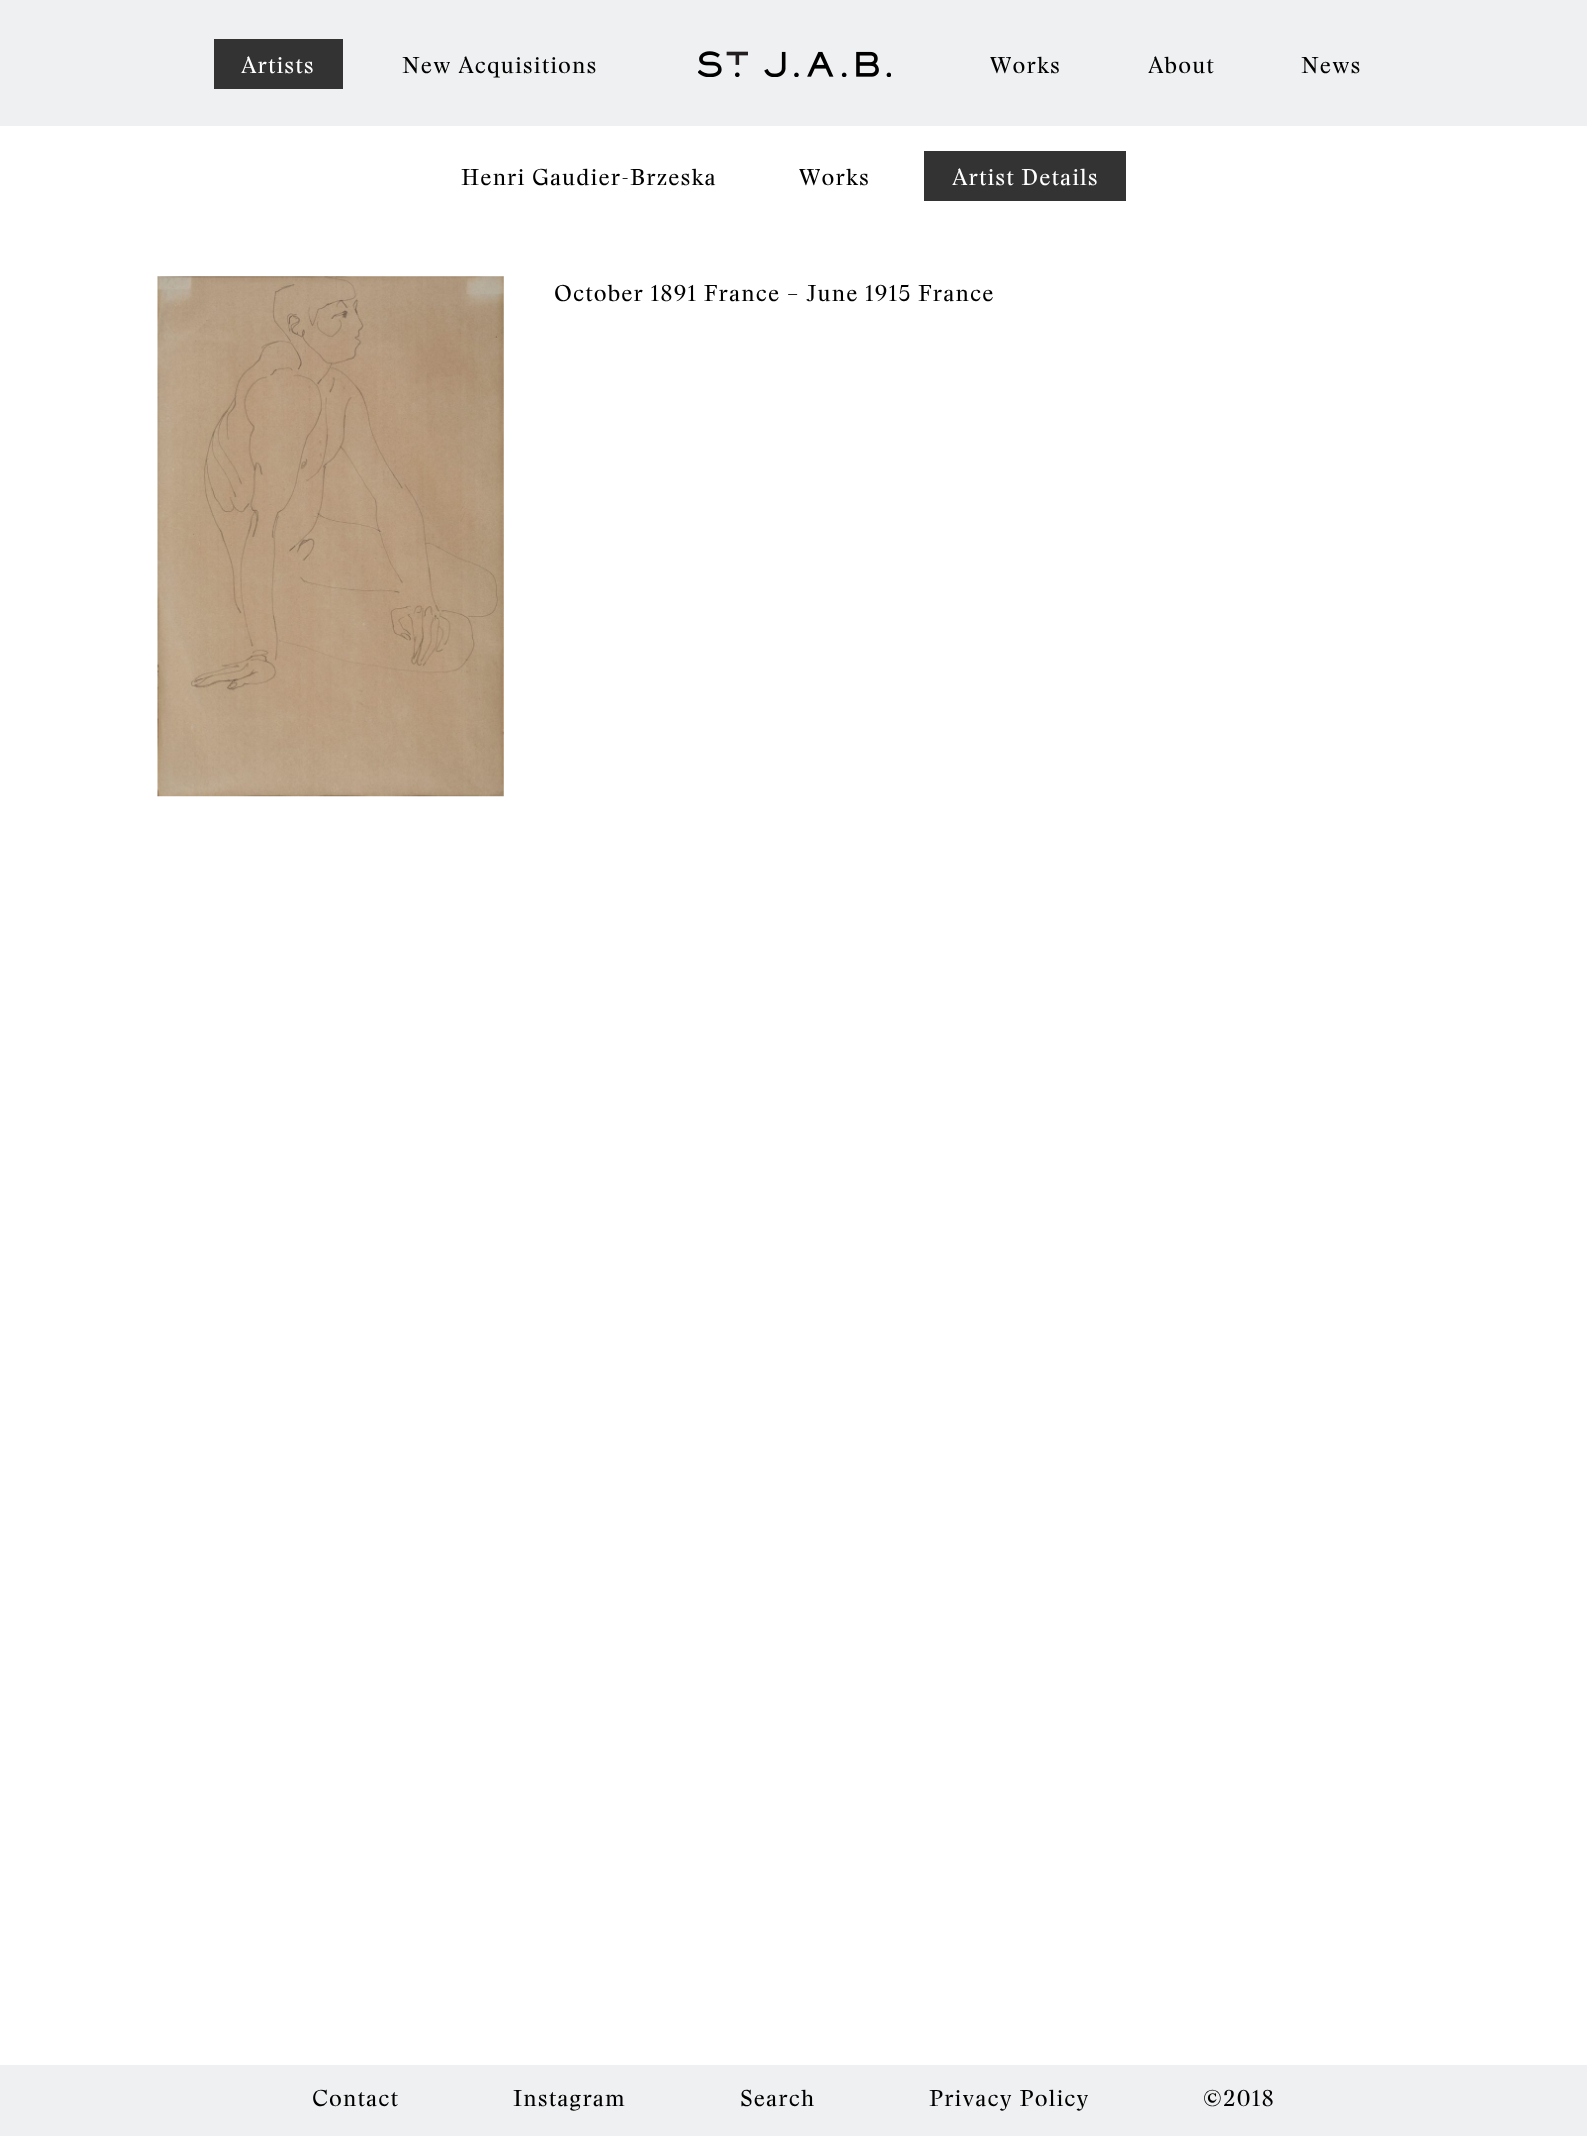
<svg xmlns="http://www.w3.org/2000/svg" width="1587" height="2136">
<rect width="100%" height="100%" fill="#fff"/>
<rect width="1587" height="126" fill="#eff0f1"/>
<rect x="214" y="39" width="129" height="50" fill="#333"/>
<text x="241" y="73" style="font-family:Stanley;font-size:22.5px;letter-spacing:1.1px;fill:#fff">Artists</text>
<text x="402" y="73" style="font-family:Stanley;font-size:22.5px;letter-spacing:1.1px;fill:#000">New Acquisitions</text>
<image x="698" y="51" width="193" height="26" href="media/1.png"/>
<text x="990" y="73" style="font-family:Stanley;font-size:22.5px;letter-spacing:1.1px;fill:#000">Works</text>
<text x="1148" y="73" style="font-family:Stanley;font-size:22.5px;letter-spacing:1.1px;fill:#000">About</text>
<text x="1301" y="73" style="font-family:Stanley;font-size:22.5px;letter-spacing:1.1px;fill:#000">News</text>
<text x="461" y="185" style="font-family:Stanley;font-size:22.5px;letter-spacing:1.1px;fill:#000">Henri Gaudier-Brzeska</text>
<text x="799" y="185" style="font-family:Stanley;font-size:22.5px;letter-spacing:1.1px;fill:#000">Works</text>
<rect x="924" y="151" width="202" height="50" fill="#333"/>
<text x="952" y="185" style="font-family:Stanley;font-size:22.5px;letter-spacing:1.1px;fill:#fff">Artist Details</text>
<image x="157" y="276" width="347" height="521" href="media/2.png"/>
<text x="554" y="301" style="font-family:Stanley;font-size:22.5px;letter-spacing:1.1px;fill:#000">October 1891 France – June 1915 France</text>
<rect y="2065" width="1587" height="71" fill="#eff0f1"/>
<text x="312" y="2106" style="font-family:Stanley;font-size:22.5px;letter-spacing:1.1px;fill:#000">Contact</text>
<text x="513" y="2106" style="font-family:Stanley;font-size:22.5px;letter-spacing:1.1px;fill:#000">Instagram</text>
<text x="740" y="2106" style="font-family:Stanley;font-size:22.5px;letter-spacing:1.1px;fill:#000">Search</text>
<text x="929" y="2106" style="font-family:Stanley;font-size:22.5px;letter-spacing:1.1px;fill:#000">Privacy Policy</text>
<text x="1203" y="2106" style="font-family:Stanley;font-size:22.5px;letter-spacing:1.1px;fill:#000">©2018</text>
</svg>
